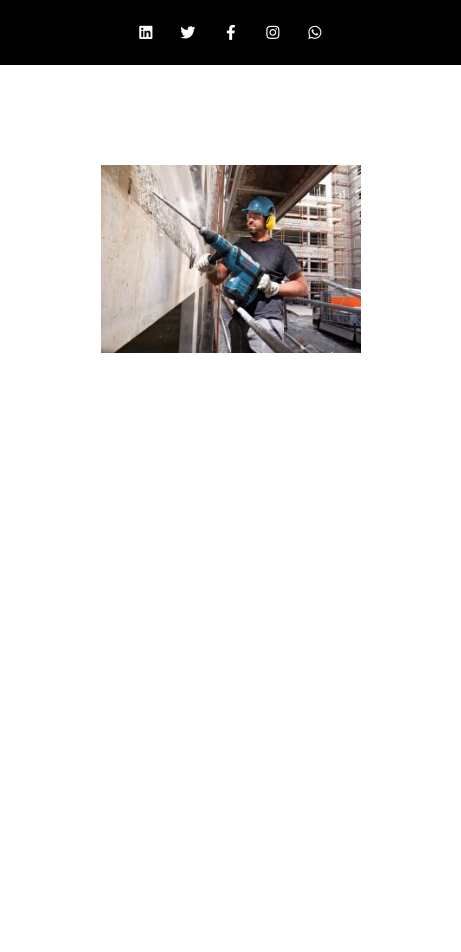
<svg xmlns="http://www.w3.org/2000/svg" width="461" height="952">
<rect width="100%" height="100%" fill="#fff"/>
<rect width="461" height="65" fill="#000"/>
<image x="139" y="25" width="14" height="14" href="media/1.png"/>
<image x="180" y="26" width="16" height="13" href="media/2.png"/>
<image x="226" y="24" width="9" height="16" href="media/3.png"/>
<image x="266" y="25" width="14" height="14" href="media/4.png"/>
<image x="308" y="25" width="14" height="14" href="media/5.png"/>
<image x="101" y="165" width="260" height="188" href="media/6.png"/>
</svg>
